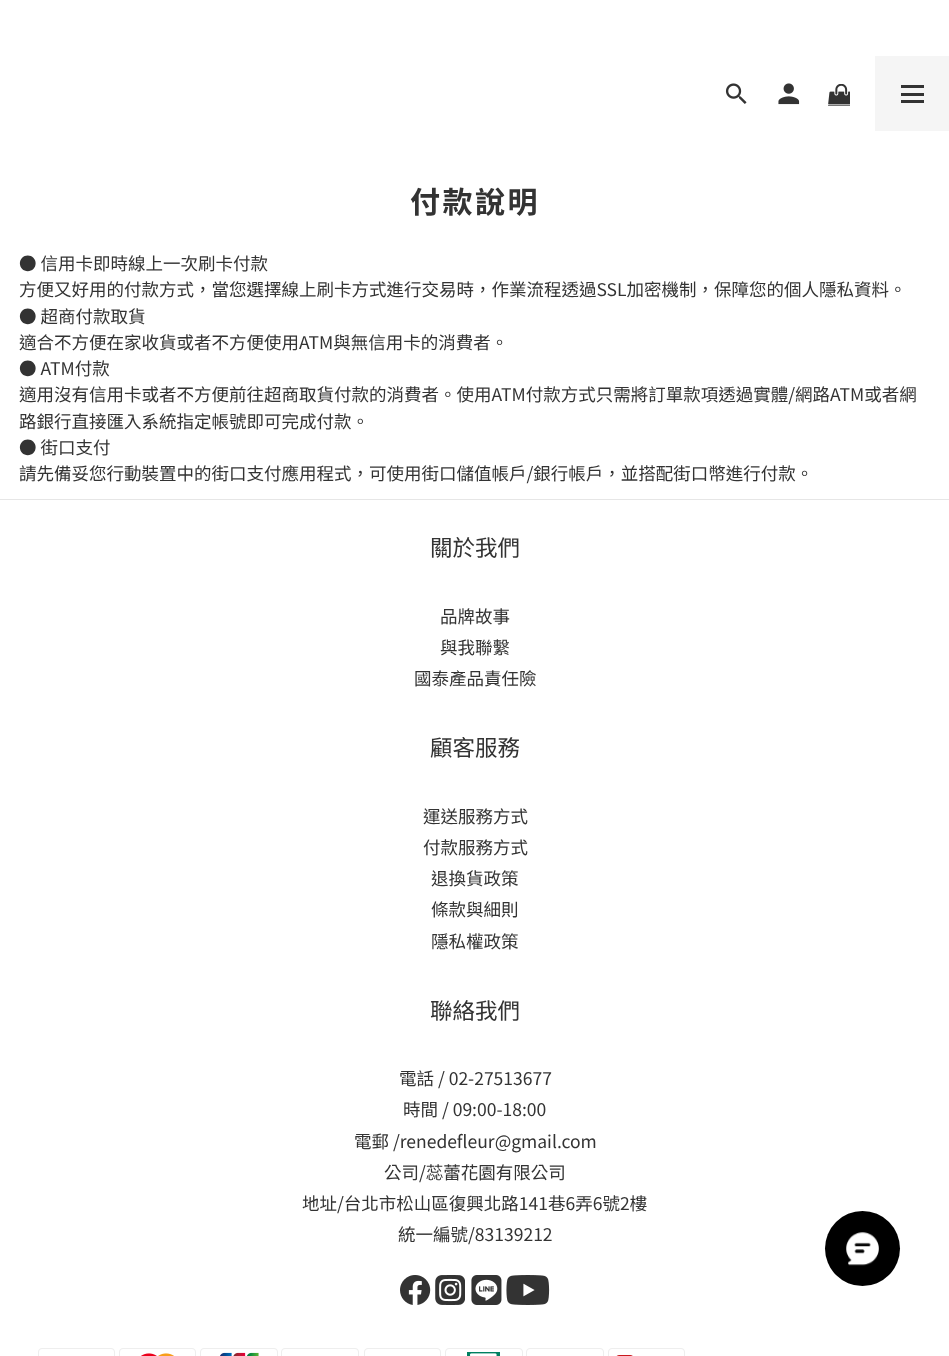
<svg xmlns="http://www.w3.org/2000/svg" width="949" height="1356">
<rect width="100%" height="100%" fill="#fff"/>
<image x="725" y="83" width="22" height="21" href="media/1.png"/>
<image x="778" y="83" width="22" height="22" href="media/2.png"/>
<image x="828" y="84" width="22" height="22" href="media/3.png"/>
<rect x="875" y="56" width="74" height="75" fill="#f5f5f5"/>
<rect x="901" y="93" width="23" height="3" fill="#333"/>
<rect x="901" y="85" width="23" height="3" fill="#333"/>
<rect x="901" y="100" width="23" height="3" fill="#333"/>
<text x="410" y="213" style="font-family:Noto Sans TC;font-size:30px;font-weight:bold;letter-spacing:2.5px;fill:#333">付款說明</text>
<text x="19" y="270" style="font-family:Noto Sans TC;font-size:17.5px;fill:#333">● 信用卡即時線上一次刷卡付款</text>
<text x="19" y="296" style="font-family:Noto Sans TC;font-size:17.5px;fill:#333">方便又好用的付款方式，當您選擇線上刷卡方式進行交易時，作業流程透過SSL加密機制，保障您的個人隱私資料。</text>
<text x="19" y="323" style="font-family:Noto Sans TC;font-size:17.5px;fill:#333">● 超商付款取貨</text>
<text x="19" y="349" style="font-family:Noto Sans TC;font-size:17.5px;fill:#333">適合不方便在家收貨或者不方便使用ATM與無信用卡的消費者。</text>
<text x="19" y="375" style="font-family:Noto Sans TC;font-size:17.5px;fill:#333">● ATM付款</text>
<text x="19" y="401" style="font-family:Noto Sans TC;font-size:17.5px;fill:#333">適用沒有信用卡或者不方便前往超商取貨付款的消費者。使用ATM付款方式只需將訂單款項透過實體/網路ATM或者網</text>
<text x="19" y="428" style="font-family:Noto Sans TC;font-size:17.5px;fill:#333">路銀行直接匯入系統指定帳號即可完成付款。</text>
<text x="19" y="454" style="font-family:Noto Sans TC;font-size:17.5px;fill:#333">● 街口支付</text>
<text x="19" y="480" style="font-family:Noto Sans TC;font-size:17.5px;fill:#333">請先備妥您行動裝置中的街口支付應用程式，可使用街口儲值帳戶/銀行帳戶，並搭配街口幣進行付款。</text>
<rect y="499" width="949" height="1" fill="#e6e6e6"/>
<text x="430" y="556" style="font-family:Noto Sans TC;font-size:22.5px;fill:#333">關於我們</text>
<text x="440" y="623" style="font-family:Noto Sans TC;font-size:17.5px;fill:#333">品牌故事</text>
<text x="440" y="654" style="font-family:Noto Sans TC;font-size:17.5px;fill:#333">與我聯繫</text>
<text x="414" y="685" style="font-family:Noto Sans TC;font-size:17.5px;fill:#333">國泰產品責任險</text>
<text x="430" y="756" style="font-family:Noto Sans TC;font-size:22.5px;fill:#333">顧客服務</text>
<text x="423" y="823" style="font-family:Noto Sans TC;font-size:17.5px;fill:#333">運送服務方式</text>
<text x="423" y="854" style="font-family:Noto Sans TC;font-size:17.5px;fill:#333">付款服務方式</text>
<text x="431" y="885" style="font-family:Noto Sans TC;font-size:17.5px;fill:#333">退換貨政策</text>
<text x="431" y="916" style="font-family:Noto Sans TC;font-size:17.5px;fill:#333">條款與細則</text>
<text x="431" y="948" style="font-family:Noto Sans TC;font-size:17.5px;fill:#333">隱私權政策</text>
<text x="430" y="1019" style="font-family:Noto Sans TC;font-size:22.5px;fill:#333">聯絡我們</text>
<text x="399" y="1085" style="font-family:Noto Sans TC;font-size:17.5px;fill:#333">電話 / 02-27513677</text>
<text x="403" y="1116" style="font-family:Noto Sans TC;font-size:17.5px;fill:#333">時間 / 09:00-18:00</text>
<text x="354" y="1148" style="font-family:Noto Sans TC;font-size:17.5px;fill:#333">電郵 /renedefleur@gmail.com</text>
<text x="384" y="1179" style="font-family:Noto Sans TC;font-size:17.5px;fill:#333">公司/蕊蕾花園有限公司</text>
<text x="302" y="1210" style="font-family:Noto Sans TC;font-size:17.5px;fill:#333">地址/台北市松山區復興北路141巷6弄6號2樓</text>
<text x="398" y="1241" style="font-family:Noto Sans TC;font-size:17.5px;fill:#333">統一編號/83139212</text>
<image x="400" y="1275" width="31" height="30" href="media/4.png"/>
<image x="435" y="1275" width="30" height="30" href="media/5.png"/>
<image x="471" y="1275" width="31" height="30" href="media/6.png"/>
<image x="506" y="1275" width="44" height="30" href="media/7.png"/>
<image x="38" y="1348" width="77" height="8" href="media/8.png"/>
<image x="119" y="1348" width="77" height="8" href="media/9.png"/>
<image x="200" y="1348" width="78" height="8" href="media/10.png"/>
<image x="281" y="1348" width="78" height="8" href="media/11.png"/>
<image x="364" y="1348" width="77" height="8" href="media/12.png"/>
<image x="445" y="1348" width="78" height="8" href="media/13.png"/>
<image x="526" y="1348" width="78" height="8" href="media/11.png"/>
<image x="608" y="1348" width="77" height="8" href="media/14.png"/>
<circle cx="862.5" cy="1248.5" r="37.5" fill="#000"/>
<image x="846" y="1232" width="33" height="34" href="media/15.png"/>
</svg>
